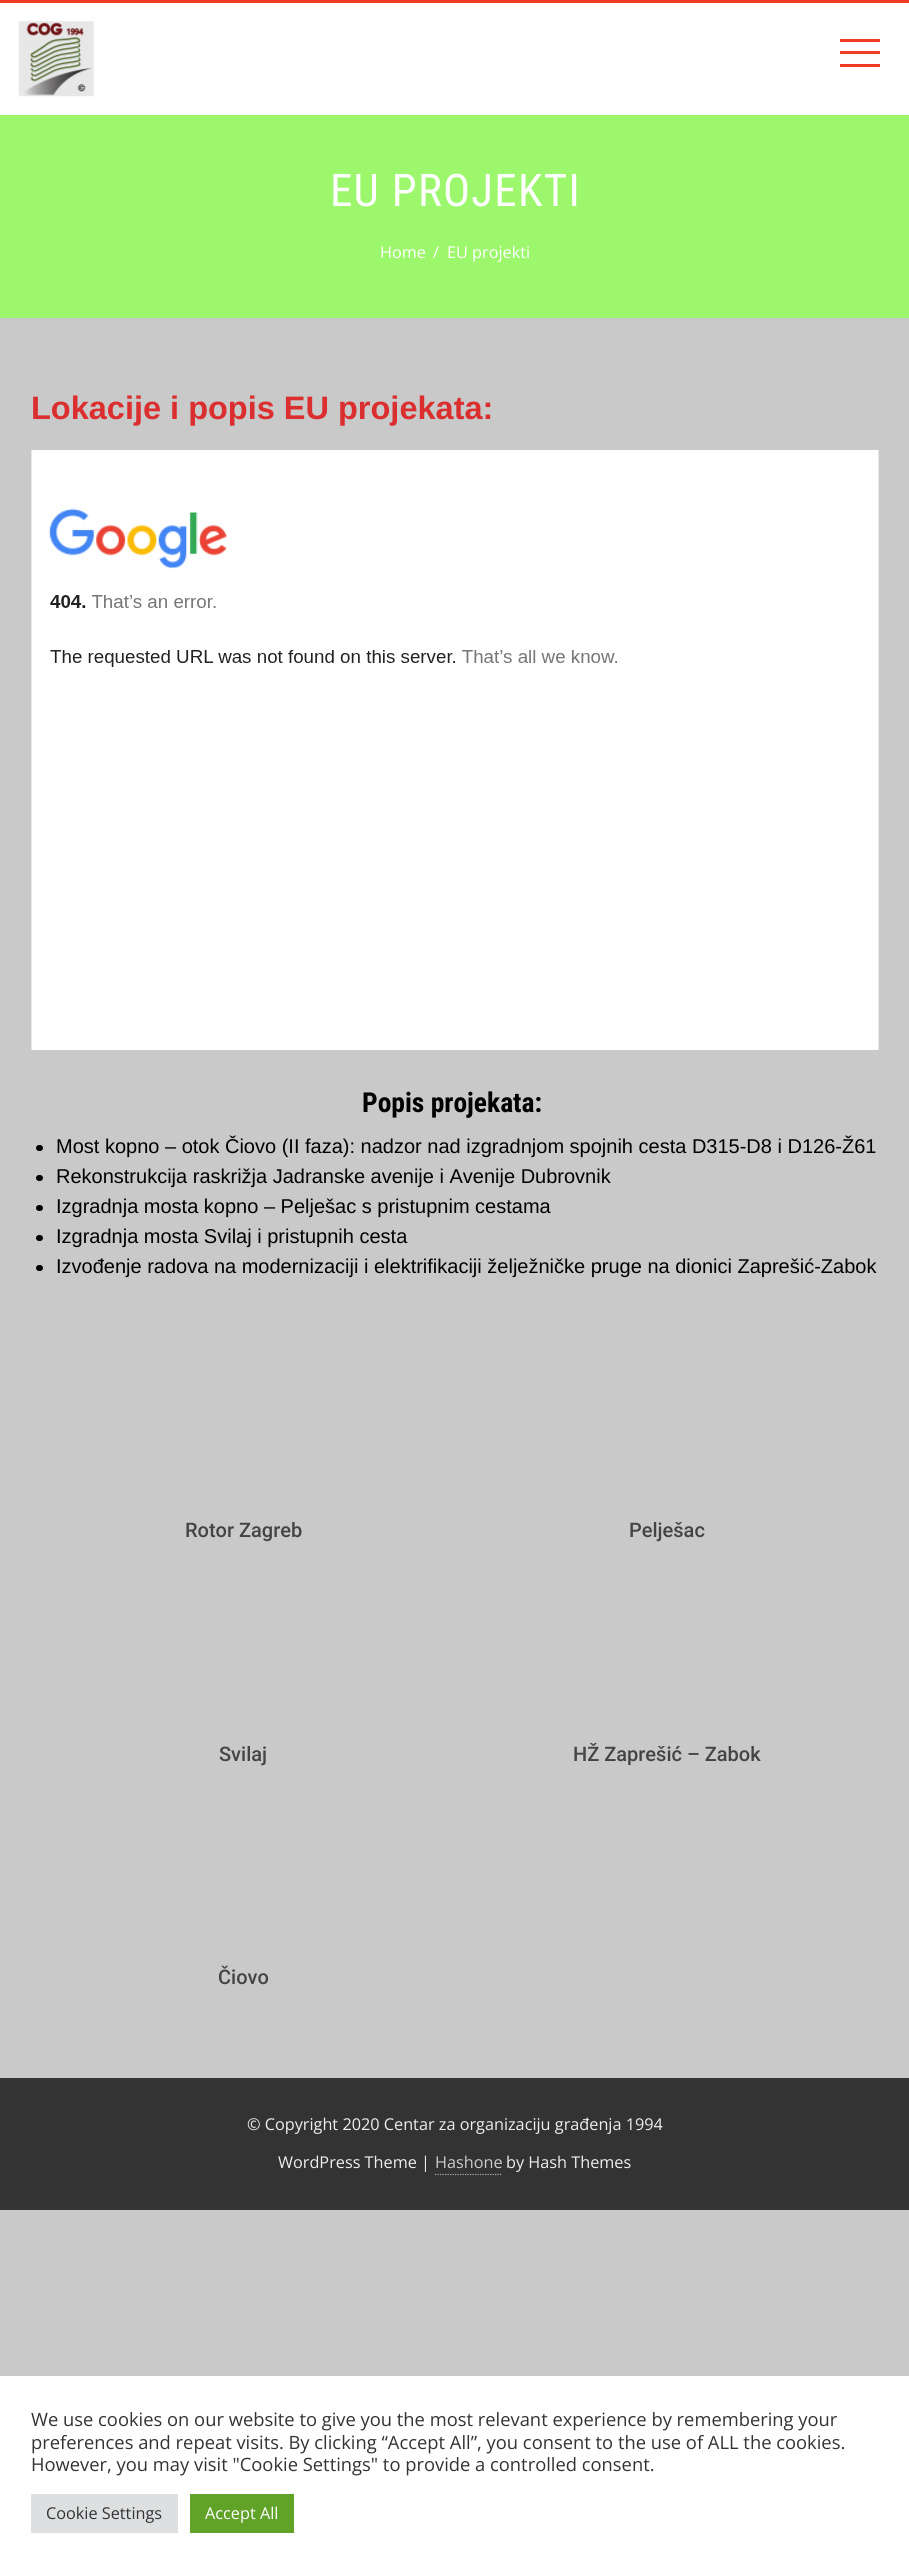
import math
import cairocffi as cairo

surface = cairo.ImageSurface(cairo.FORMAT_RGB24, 909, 2569)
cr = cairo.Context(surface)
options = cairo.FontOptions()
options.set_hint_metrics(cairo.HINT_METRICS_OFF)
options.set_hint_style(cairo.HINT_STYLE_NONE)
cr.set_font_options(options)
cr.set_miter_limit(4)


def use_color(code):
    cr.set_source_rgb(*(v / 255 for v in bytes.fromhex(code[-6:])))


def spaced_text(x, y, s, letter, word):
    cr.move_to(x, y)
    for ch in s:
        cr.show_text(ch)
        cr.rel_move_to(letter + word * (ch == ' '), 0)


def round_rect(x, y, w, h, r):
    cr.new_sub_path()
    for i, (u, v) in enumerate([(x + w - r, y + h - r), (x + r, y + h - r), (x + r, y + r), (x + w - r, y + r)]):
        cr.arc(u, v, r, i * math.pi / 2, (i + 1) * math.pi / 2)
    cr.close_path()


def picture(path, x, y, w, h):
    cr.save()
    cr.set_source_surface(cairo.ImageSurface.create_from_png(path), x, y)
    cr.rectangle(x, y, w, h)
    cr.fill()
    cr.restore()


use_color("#c9c9c9")
cr.paint()
use_color("#ffffff")
cr.rectangle(0, 3, 909, 112)
cr.fill()
use_color("#ee3b24")
cr.rectangle(0, 0, 909, 3)
cr.fill()
picture("img1.png", 18, 21, 76, 76)
cr.rectangle(840, 39, 40, 3)
cr.fill()
cr.rectangle(840, 64, 40, 3)
cr.fill()
cr.rectangle(840, 51, 40, 3)
cr.fill()
use_color("#9df76d")
cr.rectangle(0, 115, 909, 203)
cr.fill()
cr.select_font_face("Roboto Condensed")
cr.set_font_size(45)
use_color("#ffffff")
spaced_text(330, 206, "EU PROJEKTI", 1.25, 0)
cr.select_font_face("Open Sans")
cr.set_font_size(16.25)
cr.move_to(380, 258)
cr.show_text("Home")
cr.move_to(433, 258)
cr.show_text("/")
cr.move_to(447, 258)
cr.show_text("EU projekti")
cr.select_font_face("Liberation Sans", cairo.FONT_SLANT_NORMAL, cairo.FONT_WEIGHT_BOLD)
cr.set_font_size(32.5)
use_color("#db2e2e")
cr.move_to(31, 419)
cr.show_text("Lokacije i popis EU projekata:")
picture("img2.png", 31, 450, 848, 600)
cr.select_font_face("Roboto Condensed", cairo.FONT_SLANT_NORMAL, cairo.FONT_WEIGHT_BOLD)
cr.set_font_size(27.5)
use_color("#000000")
cr.move_to(362, 1112)
cr.show_text("Popis projekata:")
round_rect(36, 1145, 7, 6, 3)
cr.fill()
cr.select_font_face("Liberation Sans")
cr.set_font_size(20)
cr.move_to(56, 1153)
cr.show_text("Most kopno – otok Čiovo (II faza): nadzor nad izgradnjom spojnih cesta D315-D8 i D126-Ž61")
round_rect(36, 1175, 7, 6, 3)
cr.fill()
cr.move_to(56, 1183)
cr.show_text("Rekonstrukcija raskrižja Jadranske avenije i Avenije Dubrovnik")
round_rect(36, 1205, 7, 6, 3)
cr.fill()
cr.move_to(56, 1213)
cr.show_text("Izgradnja mosta kopno – Pelješac s pristupnim cestama")
round_rect(36, 1235, 7, 6, 3)
cr.fill()
cr.move_to(56, 1243)
cr.show_text("Izgradnja mosta Svilaj i pristupnih cesta")
round_rect(36, 1265, 7, 6, 3)
cr.fill()
cr.move_to(56, 1273)
cr.show_text("Izvođenje radova na modernizaciji i elektrifikaciji želježničke pruge na dionici Zaprešić-Zabok")
cr.select_font_face("Roboto Medium")
use_color("#444444")
cr.move_to(185, 1537)
cr.show_text("Rotor Zagreb")
cr.move_to(629, 1537)
cr.show_text("Pelješac")
cr.move_to(219, 1761)
cr.show_text("Svilaj")
cr.move_to(573, 1761)
cr.show_text("HŽ Zaprešić – Zabok")
cr.move_to(218, 1984)
cr.show_text("Čiovo")
use_color("#333333")
cr.rectangle(0, 2078, 909, 132)
cr.fill()
cr.select_font_face("Open Sans")
cr.set_font_size(16.25)
use_color("#eeeeee")
cr.move_to(247, 2130)
cr.show_text("© Copyright 2020 Centar za organizaciju građenja 1994")
cr.move_to(278, 2168)
cr.show_text("WordPress Theme |")
use_color("#cccccc")
cr.move_to(435, 2168)
cr.show_text("Hashone")
cr.new_path()
cr.move_to(435, 2174.5)
cr.line_to(502.5, 2174.5)
use_color("#aaaaaa")
cr.set_line_width(1.2)
cr.set_dash([1.25, 1.25])
cr.stroke()
use_color("#eeeeee")
cr.move_to(506, 2168)
cr.show_text("by Hash Themes")
use_color("#ffffff")
cr.rectangle(0, 2376, 909, 193)
cr.fill()
cr.set_font_size(18.35)
use_color("#333333")
cr.move_to(31, 2426)
cr.show_text("We use cookies on our website to give you the most relevant experience by remembering your")
cr.move_to(31, 2449)
cr.show_text("preferences and repeat visits. By clicking “Accept All”, you consent to the use of ALL the cookies.")
cr.move_to(31, 2471)
cr.show_text("However, you may visit \"Cookie Settings\" to provide a controlled consent.")
use_color("#dedfe0")
cr.rectangle(31, 2494, 147, 39)
cr.fill()
cr.set_font_size(16.25)
use_color("#333333")
cr.move_to(46, 2519)
cr.show_text("Cookie Settings")
use_color("#61a229")
cr.rectangle(190, 2494, 104, 39)
cr.fill()
use_color("#ffffff")
cr.move_to(205, 2519)
cr.show_text("Accept All")
surface.write_to_png("result.png")
